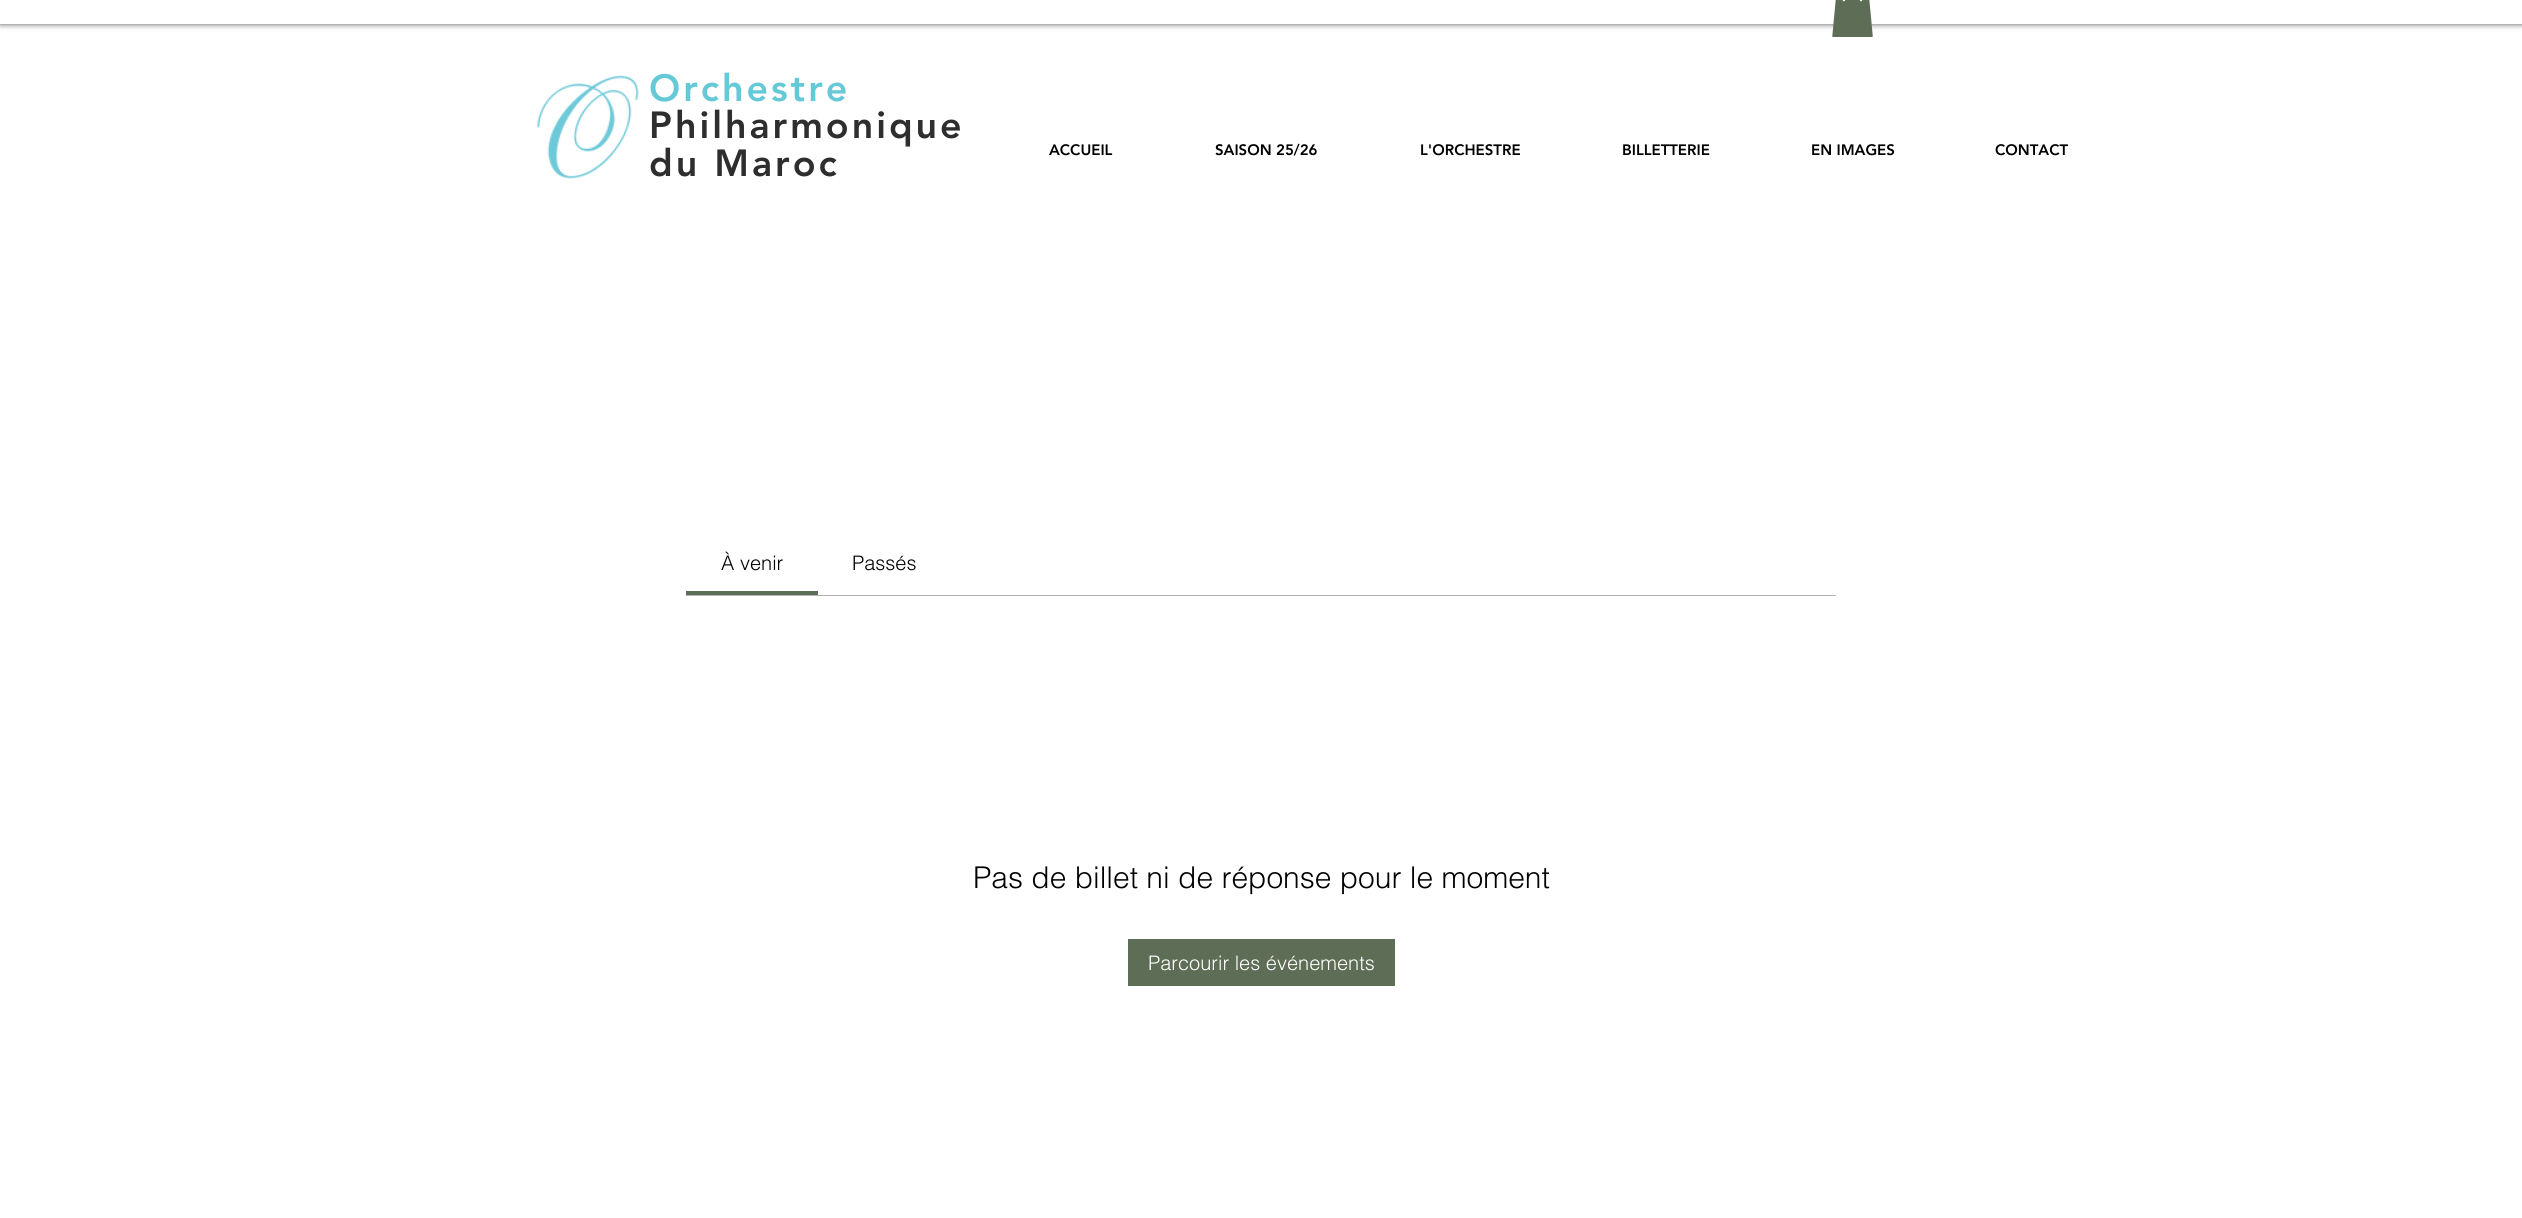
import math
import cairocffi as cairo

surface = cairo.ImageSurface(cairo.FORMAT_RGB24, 2522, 1218)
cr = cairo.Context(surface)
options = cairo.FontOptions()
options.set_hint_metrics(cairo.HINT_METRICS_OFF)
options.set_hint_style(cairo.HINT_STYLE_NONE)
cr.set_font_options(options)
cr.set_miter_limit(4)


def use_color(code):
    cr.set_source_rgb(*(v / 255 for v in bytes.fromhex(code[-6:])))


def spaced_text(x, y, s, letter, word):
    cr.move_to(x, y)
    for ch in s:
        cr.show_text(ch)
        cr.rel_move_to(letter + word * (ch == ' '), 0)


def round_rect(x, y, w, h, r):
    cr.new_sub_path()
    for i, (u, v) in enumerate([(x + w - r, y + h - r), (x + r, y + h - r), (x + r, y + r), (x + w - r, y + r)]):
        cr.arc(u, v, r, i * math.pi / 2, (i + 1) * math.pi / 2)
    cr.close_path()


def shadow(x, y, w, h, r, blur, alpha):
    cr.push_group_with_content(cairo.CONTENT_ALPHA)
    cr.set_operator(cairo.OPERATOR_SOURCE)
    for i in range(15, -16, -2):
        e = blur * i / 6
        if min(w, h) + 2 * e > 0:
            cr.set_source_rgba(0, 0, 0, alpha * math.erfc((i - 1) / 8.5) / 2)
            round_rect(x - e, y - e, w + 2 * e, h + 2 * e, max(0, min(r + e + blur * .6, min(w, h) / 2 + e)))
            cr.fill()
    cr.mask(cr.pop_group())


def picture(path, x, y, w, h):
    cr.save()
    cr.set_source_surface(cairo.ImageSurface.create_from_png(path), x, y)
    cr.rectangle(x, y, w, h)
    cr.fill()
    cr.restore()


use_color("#ffffff")
cr.paint()
use_color("#000000")
shadow(0, 0, 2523, 24, 0, 3, 0.7)
use_color("#ffffff")
cr.rectangle(0, 0, 2522, 24)
cr.fill()
picture("img1.png", 1832, 0, 41, 37)
picture("img2.png", 536, 75, 103, 104)
cr.select_font_face("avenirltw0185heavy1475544 Black")
cr.set_font_size(37.5)
use_color("#65c9d8")
spaced_text(649, 101, "Orchestre", 3, 0)
use_color("#2f2e2e")
spaced_text(649, 138, "Philharmonique", 3, 0)
spaced_text(649, 176, "du Maroc", 3, 0)
cr.set_font_size(15)
use_color("#000000")
cr.move_to(1049, 155)
cr.show_text("ACCUEIL")
cr.move_to(1215, 155)
cr.show_text("SAISON 25/26")
cr.move_to(1420, 155)
cr.show_text("L'ORCHESTRE")
cr.move_to(1622, 155)
cr.show_text("BILLETTERIE")
cr.move_to(1811, 155)
cr.show_text("EN IMAGES")
cr.move_to(1995, 155)
cr.show_text("CONTACT")
use_color("#5e6d55")
cr.rectangle(686, 591, 132, 4)
cr.fill()
cr.select_font_face("helvetica Light")
cr.set_font_size(20)
use_color("#000000")
cr.move_to(721, 570)
cr.show_text("À venir")
cr.move_to(852, 570)
cr.show_text("Passés")
use_color("#b3b3b3")
cr.rectangle(686, 595, 1150, 1)
cr.fill()
cr.set_font_size(30)
use_color("#000000")
cr.move_to(973, 888)
cr.show_text("Pas de billet ni de réponse pour le moment")
use_color("#5e6d55")
cr.rectangle(1128, 939, 267, 47)
cr.fill()
cr.set_font_size(20)
use_color("#ffffff")
cr.move_to(1148, 970)
cr.show_text("Parcourir les événements")
surface.write_to_png("result.png")
